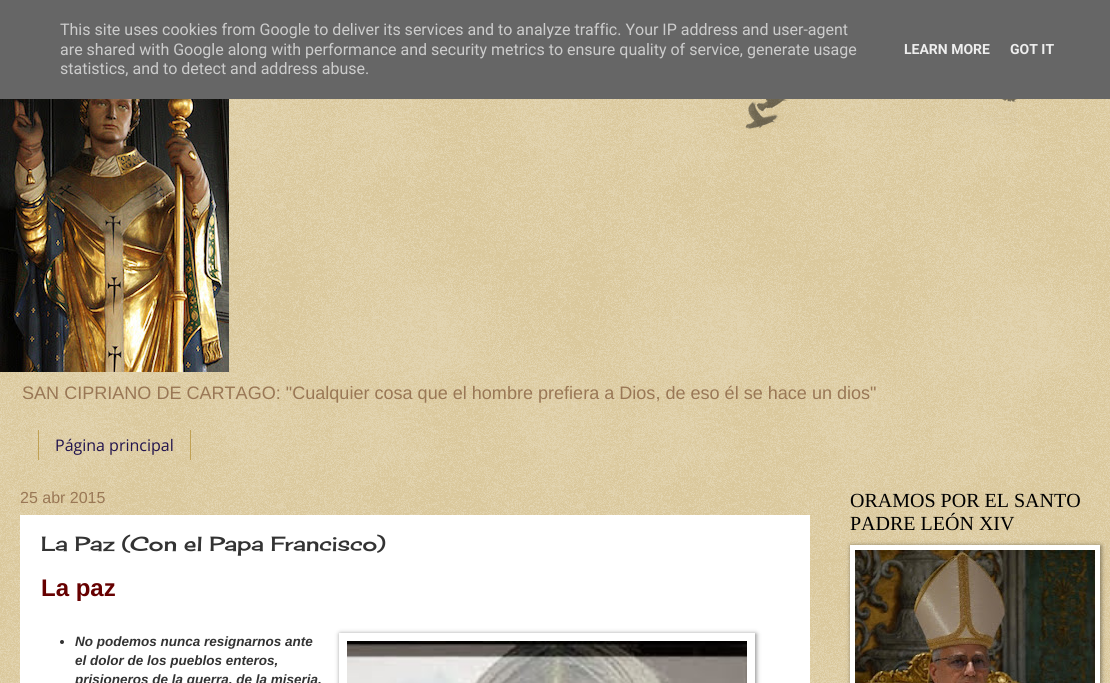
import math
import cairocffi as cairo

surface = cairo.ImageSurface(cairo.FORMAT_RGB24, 1110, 683)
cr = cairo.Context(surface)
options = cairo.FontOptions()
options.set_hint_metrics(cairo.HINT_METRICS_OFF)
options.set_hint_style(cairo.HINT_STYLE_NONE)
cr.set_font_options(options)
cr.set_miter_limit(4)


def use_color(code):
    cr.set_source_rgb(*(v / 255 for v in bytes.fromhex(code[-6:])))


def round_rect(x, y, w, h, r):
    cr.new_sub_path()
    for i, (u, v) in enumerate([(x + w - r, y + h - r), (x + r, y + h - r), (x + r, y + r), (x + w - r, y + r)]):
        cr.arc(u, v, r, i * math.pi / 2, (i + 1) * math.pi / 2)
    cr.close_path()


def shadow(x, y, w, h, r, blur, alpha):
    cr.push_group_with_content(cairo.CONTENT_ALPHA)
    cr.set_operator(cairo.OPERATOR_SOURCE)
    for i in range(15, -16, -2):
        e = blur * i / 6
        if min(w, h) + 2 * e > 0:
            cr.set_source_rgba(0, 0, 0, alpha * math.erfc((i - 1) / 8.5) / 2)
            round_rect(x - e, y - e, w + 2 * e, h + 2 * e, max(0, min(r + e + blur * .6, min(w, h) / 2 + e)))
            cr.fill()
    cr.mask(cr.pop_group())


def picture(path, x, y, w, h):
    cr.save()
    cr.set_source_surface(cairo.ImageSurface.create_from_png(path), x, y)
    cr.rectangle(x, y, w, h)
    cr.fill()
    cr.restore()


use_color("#c0a154")
cr.paint()
picture("img1.png", 0, 99, 1110, 584)
use_color("#666666")
cr.rectangle(0, 0, 1110, 99)
cr.fill()
cr.select_font_face("Roboto")
cr.set_font_size(16)
use_color("#cccccc")
cr.move_to(60, 35)
cr.show_text("This site uses cookies from Google to deliver its services and to analyze traffic. Your IP address and user-agent")
cr.move_to(60, 55)
cr.show_text("are shared with Google along with performance and security metrics to ensure quality of service, generate usage")
cr.move_to(60, 74)
cr.show_text("statistics, and to detect and address abuse.")
cr.select_font_face("Roboto", cairo.FONT_SLANT_NORMAL, cairo.FONT_WEIGHT_BOLD)
cr.set_font_size(14)
use_color("#eeeeee")
cr.move_to(904, 54)
cr.show_text("LEARN MORE")
cr.move_to(1010, 54)
cr.show_text("GOT IT")
picture("img2.png", 745, 99, 272, 30)
picture("img3.png", 0, 99, 229, 273)
cr.select_font_face("Liberation Sans")
cr.set_font_size(18.05)
use_color("#997755")
cr.move_to(22, 399)
cr.show_text("SAN CIPRIANO DE CARTAGO: \"Cualquier cosa que el hombre prefiera a Dios, de eso él se hace un dios\"")
use_color("#c0a154")
cr.rectangle(190, 430, 1, 30)
cr.fill()
cr.rectangle(38, 430, 1, 30)
cr.fill()
cr.select_font_face("Open Sans")
cr.set_font_size(16)
use_color("#20124d")
cr.move_to(55, 451)
cr.show_text("Página principal")
cr.select_font_face("Liberation Sans")
use_color("#997755")
cr.move_to(20, 503)
cr.show_text("25 abr 2015")
use_color("#ffffff")
cr.rectangle(20, 515, 790, 168)
cr.fill()
cr.select_font_face("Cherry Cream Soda")
cr.set_font_size(20)
use_color("#333333")
cr.move_to(41, 551)
cr.show_text("La Paz (Con el Papa Francisco)")
cr.select_font_face("Liberation Sans", cairo.FONT_SLANT_NORMAL, cairo.FONT_WEIGHT_BOLD)
cr.set_font_size(24)
use_color("#660000")
cr.move_to(41, 596)
cr.show_text("La paz")
use_color("#333333")
cr.new_path()
cr.arc(62, 642, 2, 0, 2 * math.pi)
cr.fill()
cr.select_font_face("Liberation Sans", cairo.FONT_SLANT_ITALIC, cairo.FONT_WEIGHT_BOLD)
cr.set_font_size(13.5)
cr.move_to(75, 646)
cr.show_text("No podemos nunca resignarnos ante")
cr.move_to(75, 665)
cr.show_text("el dolor de los pueblos enteros,")
cr.move_to(75, 684)
cr.show_text("prisioneros de la guerra, de la miseria,")
cr.save()
cr.set_fill_rule(cairo.FILL_RULE_EVEN_ODD)
cr.new_path()
cr.move_to(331, 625)
cr.line_to(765, 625)
cr.line_to(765, 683)
cr.line_to(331, 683)
cr.close_path()
cr.move_to(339, 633)
cr.line_to(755, 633)
cr.line_to(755, 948)
cr.line_to(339, 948)
cr.close_path()
cr.clip()
use_color("#000000")
shadow(340, 634, 416, 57, 0, 2.5, 0.5)
cr.restore()
picture("img4.png", 347, 641, 400, 42)
cr.select_font_face("Liberation Serif")
cr.set_font_size(20)
use_color("#000000")
cr.move_to(850, 507)
cr.show_text("ORAMOS POR EL SANTO")
cr.move_to(850, 530)
cr.show_text("PADRE LEÓN XIV")
use_color("#000000")
shadow(851, 546, 250, 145, 0, 2.5, 0.5)
use_color("#ffffff")
cr.rectangle(850, 545, 250, 138)
cr.fill()
picture("img5.png", 855, 550, 240, 133)
surface.write_to_png("result.png")
